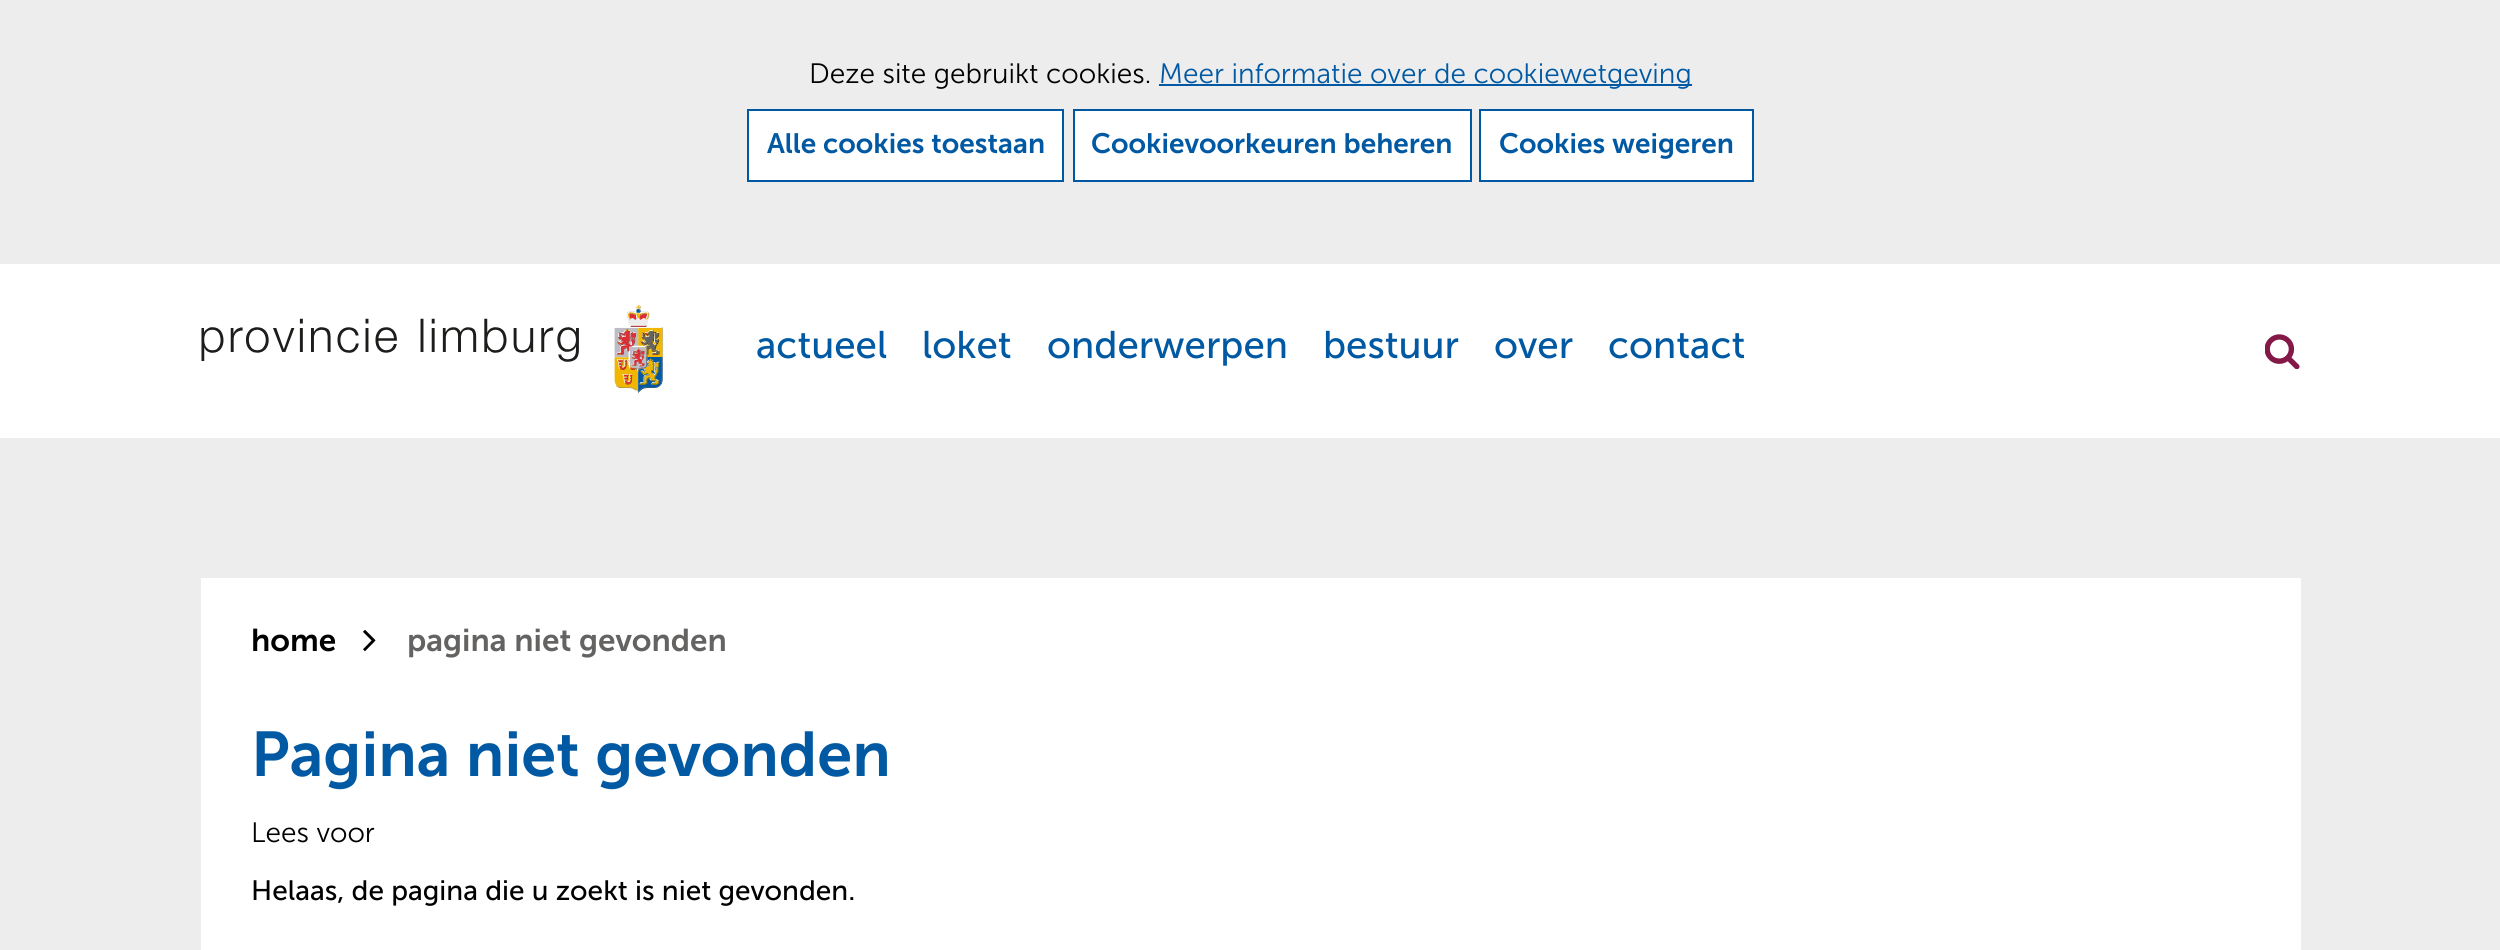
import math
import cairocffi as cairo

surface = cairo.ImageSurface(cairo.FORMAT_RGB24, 2500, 950)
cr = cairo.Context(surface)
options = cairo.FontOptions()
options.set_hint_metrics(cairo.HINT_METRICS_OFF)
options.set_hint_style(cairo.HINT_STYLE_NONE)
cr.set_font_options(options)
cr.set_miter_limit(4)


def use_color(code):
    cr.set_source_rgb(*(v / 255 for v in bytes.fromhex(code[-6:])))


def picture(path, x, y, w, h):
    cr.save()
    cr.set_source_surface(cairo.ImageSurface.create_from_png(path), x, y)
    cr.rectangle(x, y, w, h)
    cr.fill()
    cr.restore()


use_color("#ededee")
cr.paint()
cr.select_font_face("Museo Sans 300 Light")
cr.set_font_size(28)
use_color("#000000")
cr.move_to(809, 83)
cr.show_text("Deze site gebruikt cookies.")
use_color("#0059a2")
cr.rectangle(1159, 84, 533, 2)
cr.fill()
cr.move_to(1159, 83)
cr.show_text("Meer informatie over de cookiewetgeving")
use_color("#ffffff")
cr.rectangle(748, 110, 315, 71)
cr.fill_preserve()
use_color("#0058a2")
cr.stroke()
cr.select_font_face("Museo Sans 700 SemiBold")
use_color("#0059a2")
cr.move_to(767, 153)
cr.show_text("Alle cookies toestaan")
use_color("#ffffff")
cr.rectangle(1074, 110, 397, 71)
cr.fill_preserve()
use_color("#0058a2")
cr.stroke()
use_color("#0059a2")
cr.move_to(1091, 153)
cr.show_text("Cookievoorkeuren beheren")
use_color("#ffffff")
cr.rectangle(1480, 110, 273, 71)
cr.fill_preserve()
use_color("#0058a2")
cr.stroke()
use_color("#0059a2")
cr.move_to(1499, 153)
cr.show_text("Cookies weigeren")
use_color("#ffffff")
cr.rectangle(0, 264, 2500, 174)
cr.fill()
picture("img1.png", 201, 305, 462, 89)
cr.select_font_face("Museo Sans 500")
cr.set_font_size(38.5)
use_color("#0059a2")
cr.move_to(756, 358)
cr.show_text("actueel")
cr.move_to(922, 358)
cr.show_text("loket")
cr.move_to(1047, 358)
cr.show_text("onderwerpen")
cr.move_to(1323, 358)
cr.show_text("bestuur")
cr.move_to(1494, 358)
cr.show_text("over")
cr.move_to(1608, 358)
cr.show_text("contact")
picture("img2.png", 2265, 334, 35, 35)
use_color("#ffffff")
cr.rectangle(201, 578, 2100, 372)
cr.fill()
cr.select_font_face("Museo Sans 700 SemiBold")
cr.set_font_size(31.5)
use_color("#000000")
cr.move_to(251, 651)
cr.show_text("home")
picture("img3.png", 363, 630, 13, 21)
use_color("#646362")
cr.move_to(407, 651)
cr.show_text("pagina niet gevonden")
cr.set_font_size(63)
use_color("#0059a2")
cr.move_to(251, 776)
cr.show_text("Pagina niet gevonden")
cr.select_font_face("Museo Sans 300 Light")
cr.set_font_size(28)
use_color("#000000")
cr.move_to(251, 842)
cr.show_text("Lees voor")
cr.select_font_face("Museo Sans 500")
cr.move_to(251, 900)
cr.show_text("Helaas, de pagina die u zoekt is niet gevonden.")
surface.write_to_png("result.png")
